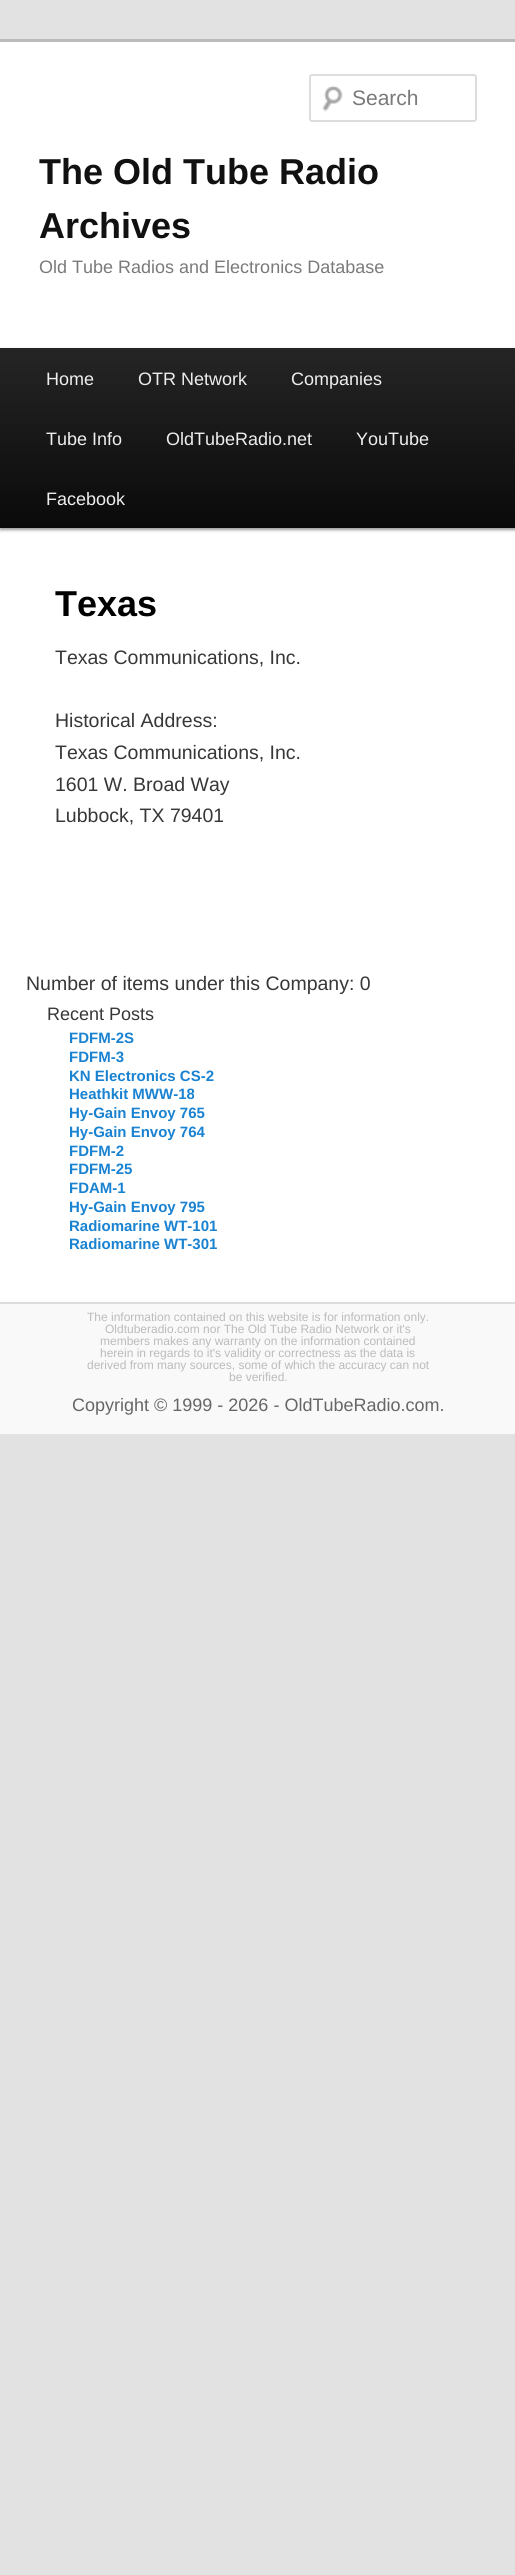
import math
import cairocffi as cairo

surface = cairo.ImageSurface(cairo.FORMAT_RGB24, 515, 2575)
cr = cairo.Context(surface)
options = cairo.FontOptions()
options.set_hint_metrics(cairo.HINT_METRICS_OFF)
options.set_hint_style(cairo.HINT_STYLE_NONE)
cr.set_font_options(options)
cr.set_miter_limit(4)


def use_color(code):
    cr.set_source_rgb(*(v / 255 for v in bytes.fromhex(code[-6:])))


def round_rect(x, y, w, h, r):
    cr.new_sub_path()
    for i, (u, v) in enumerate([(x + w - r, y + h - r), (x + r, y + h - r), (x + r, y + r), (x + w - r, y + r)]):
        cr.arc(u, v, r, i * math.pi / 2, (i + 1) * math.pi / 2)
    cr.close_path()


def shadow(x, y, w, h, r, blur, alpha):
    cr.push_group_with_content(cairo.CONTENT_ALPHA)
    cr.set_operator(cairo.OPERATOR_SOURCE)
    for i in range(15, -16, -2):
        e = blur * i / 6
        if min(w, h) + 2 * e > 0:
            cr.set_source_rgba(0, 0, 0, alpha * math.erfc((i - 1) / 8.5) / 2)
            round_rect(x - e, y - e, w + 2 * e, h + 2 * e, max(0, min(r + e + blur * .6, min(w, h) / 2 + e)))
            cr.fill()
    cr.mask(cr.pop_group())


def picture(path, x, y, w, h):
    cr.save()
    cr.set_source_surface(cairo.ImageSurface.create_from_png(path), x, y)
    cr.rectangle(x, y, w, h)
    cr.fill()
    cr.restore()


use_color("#e2e2e2")
cr.paint()
use_color("#ffffff")
cr.rectangle(0, 42, 515, 1260)
cr.fill()
use_color("#bbbbbb")
cr.rectangle(0, 39, 515, 3)
cr.fill()
picture("img1.png", 322, 85, 21, 27)
round_rect(310, 75, 166, 46, 2)
use_color("#dddddd")
cr.stroke()
cr.select_font_face("Liberation Sans")
cr.set_font_size(21)
use_color("#7a7a7a")
cr.move_to(352, 105)
cr.show_text("Search")
cr.select_font_face("Liberation Sans", cairo.FONT_SLANT_NORMAL, cairo.FONT_WEIGHT_BOLD)
cr.set_font_size(36)
use_color("#111111")
cr.move_to(39, 184)
cr.show_text("The Old Tube Radio")
cr.move_to(39, 238)
cr.show_text("Archives")
cr.select_font_face("Liberation Sans")
cr.set_font_size(18)
use_color("#7a7a7a")
cr.move_to(39, 273)
cr.show_text("Old Tube Radios and Electronics Database")
use_color("#000000")
shadow(0, 350, 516, 180, 0, 1.5, 0.4)
gradient = cairo.LinearGradient(258, 348, 258, 528)
gradient.add_color_stop_rgba(0, 0.145, 0.145, 0.145, 1)
gradient.add_color_stop_rgba(1, 0.039, 0.039, 0.039, 1)
cr.set_source(gradient)
cr.rectangle(0, 348, 515, 180)
cr.fill()
use_color("#eeeeee")
cr.move_to(46, 385)
cr.show_text("Home")
cr.move_to(138, 385)
cr.show_text("OTR Network")
cr.move_to(291, 385)
cr.show_text("Companies")
cr.move_to(46, 445)
cr.show_text("Tube Info")
cr.move_to(166, 445)
cr.show_text("OldTubeRadio.net")
cr.move_to(356, 445)
cr.show_text("YouTube")
cr.move_to(46, 505)
cr.show_text("Facebook")
cr.select_font_face("Liberation Sans", cairo.FONT_SLANT_NORMAL, cairo.FONT_WEIGHT_BOLD)
cr.set_font_size(36)
use_color("#000000")
cr.move_to(55, 616)
cr.show_text("Texas")
cr.select_font_face("Liberation Sans")
cr.set_font_size(19.5)
use_color("#373737")
cr.move_to(55, 664)
cr.show_text("Texas Communications, Inc.")
cr.move_to(55, 727)
cr.show_text("Historical Address:")
cr.move_to(55, 759)
cr.show_text("Texas Communications, Inc.")
cr.move_to(55, 791)
cr.show_text("1601 W. Broad Way")
cr.move_to(55, 822)
cr.show_text("Lubbock, TX 79401")
cr.move_to(26, 990)
cr.show_text("Number of items under this Company: 0")
cr.set_font_size(18)
cr.move_to(47, 1020)
cr.show_text("Recent Posts")
cr.select_font_face("Liberation Sans", cairo.FONT_SLANT_NORMAL, cairo.FONT_WEIGHT_BOLD)
cr.set_font_size(15)
use_color("#1982d1")
cr.move_to(69, 1043)
cr.show_text("FDFM-2S")
cr.move_to(69, 1062)
cr.show_text("FDFM-3")
cr.move_to(69, 1081)
cr.show_text("KN Electronics CS-2")
cr.move_to(69, 1099)
cr.show_text("Heathkit MWW-18")
cr.move_to(69, 1118)
cr.show_text("Hy-Gain Envoy 765")
cr.move_to(69, 1137)
cr.show_text("Hy-Gain Envoy 764")
cr.move_to(69, 1156)
cr.show_text("FDFM-2")
cr.move_to(69, 1174)
cr.show_text("FDFM-25")
cr.move_to(69, 1193)
cr.show_text("FDAM-1")
cr.move_to(69, 1212)
cr.show_text("Hy-Gain Envoy 795")
cr.move_to(69, 1231)
cr.show_text("Radiomarine WT-101")
cr.move_to(69, 1249)
cr.show_text("Radiomarine WT-301")
use_color("#f9f9f9")
cr.rectangle(0, 1304, 515, 130)
cr.fill()
use_color("#dddddd")
cr.rectangle(0, 1302, 515, 2)
cr.fill()
cr.select_font_face("Liberation Sans")
cr.set_font_size(12)
use_color("#bbbbbb")
cr.move_to(87, 1321)
cr.show_text("The information contained on this website is for information only.")
cr.move_to(105, 1333)
cr.show_text("Oldtuberadio.com nor The Old Tube Radio Network or it's")
cr.move_to(100, 1345)
cr.show_text("members makes any warranty on the information contained")
cr.move_to(100, 1357)
cr.show_text("herein in regards to it's validity or correctness as the data is")
cr.move_to(87, 1369)
cr.show_text("derived from many sources, some of which the accuracy can not")
cr.move_to(229, 1381)
cr.show_text("be verified.")
cr.set_font_size(18)
use_color("#666666")
cr.move_to(72, 1411)
cr.show_text("Copyright © 1999 - 2026 - OldTubeRadio.com.")
surface.write_to_png("result.png")
